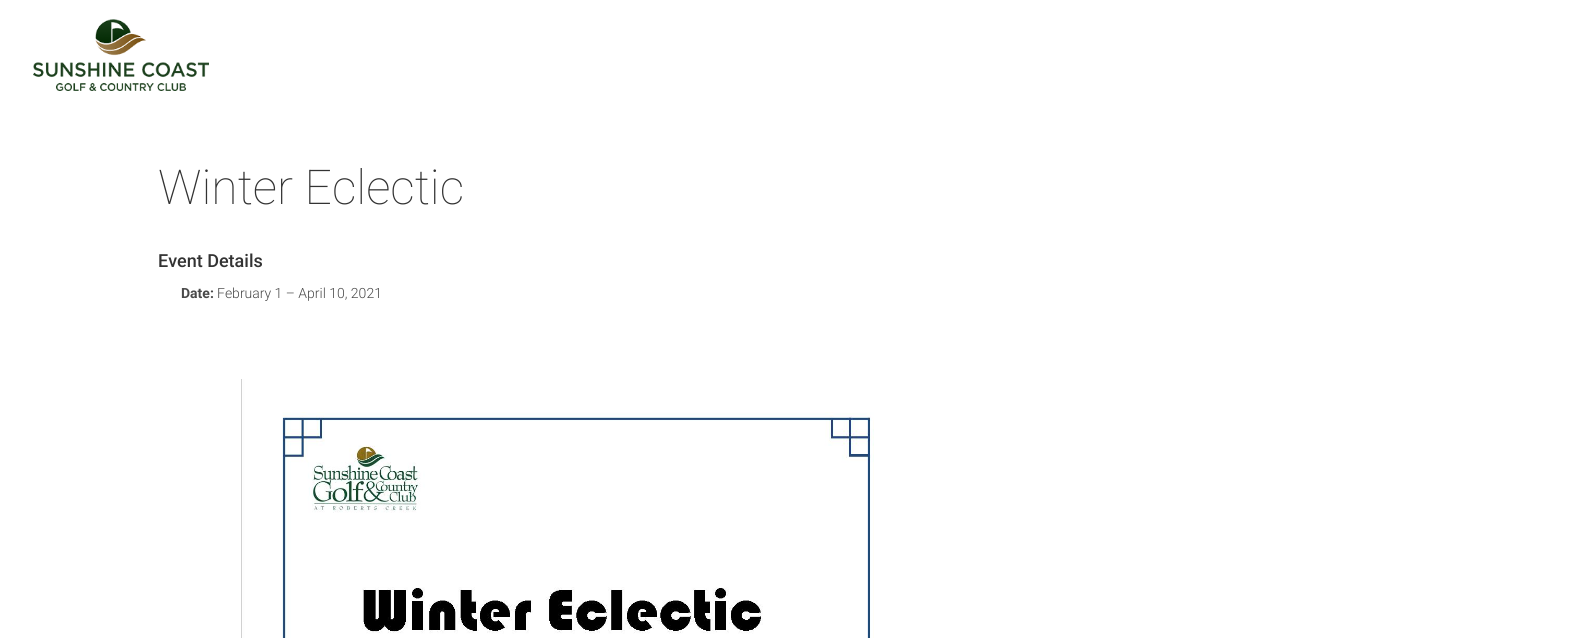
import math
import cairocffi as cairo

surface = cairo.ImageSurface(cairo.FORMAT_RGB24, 1577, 638)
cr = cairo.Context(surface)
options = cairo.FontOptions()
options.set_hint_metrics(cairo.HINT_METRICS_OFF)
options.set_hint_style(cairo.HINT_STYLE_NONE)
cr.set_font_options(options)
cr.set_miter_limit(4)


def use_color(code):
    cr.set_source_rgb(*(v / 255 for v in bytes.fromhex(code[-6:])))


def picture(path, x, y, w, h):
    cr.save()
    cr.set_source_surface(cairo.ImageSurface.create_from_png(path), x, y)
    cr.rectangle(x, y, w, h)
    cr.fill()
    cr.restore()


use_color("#ffffff")
cr.paint()
picture("img1.png", 33, 19, 176, 72)
cr.select_font_face("Roboto Thin")
cr.set_font_size(48)
use_color("#333333")
cr.move_to(158, 204)
cr.show_text("Winter Eclectic")
cr.select_font_face("Roboto Medium")
cr.set_font_size(18)
cr.move_to(158, 267)
cr.show_text("Event Details")
cr.select_font_face("Roboto", cairo.FONT_SLANT_NORMAL, cairo.FONT_WEIGHT_BOLD)
cr.set_font_size(14)
use_color("#4a4a4a")
cr.move_to(181, 298)
cr.show_text("Date:")
cr.select_font_face("Roboto Light")
cr.move_to(217, 298)
cr.show_text("February 1 – April 10, 2021")
picture("img2.png", 241, 379, 633, 259)
surface.write_to_png("result.png")
